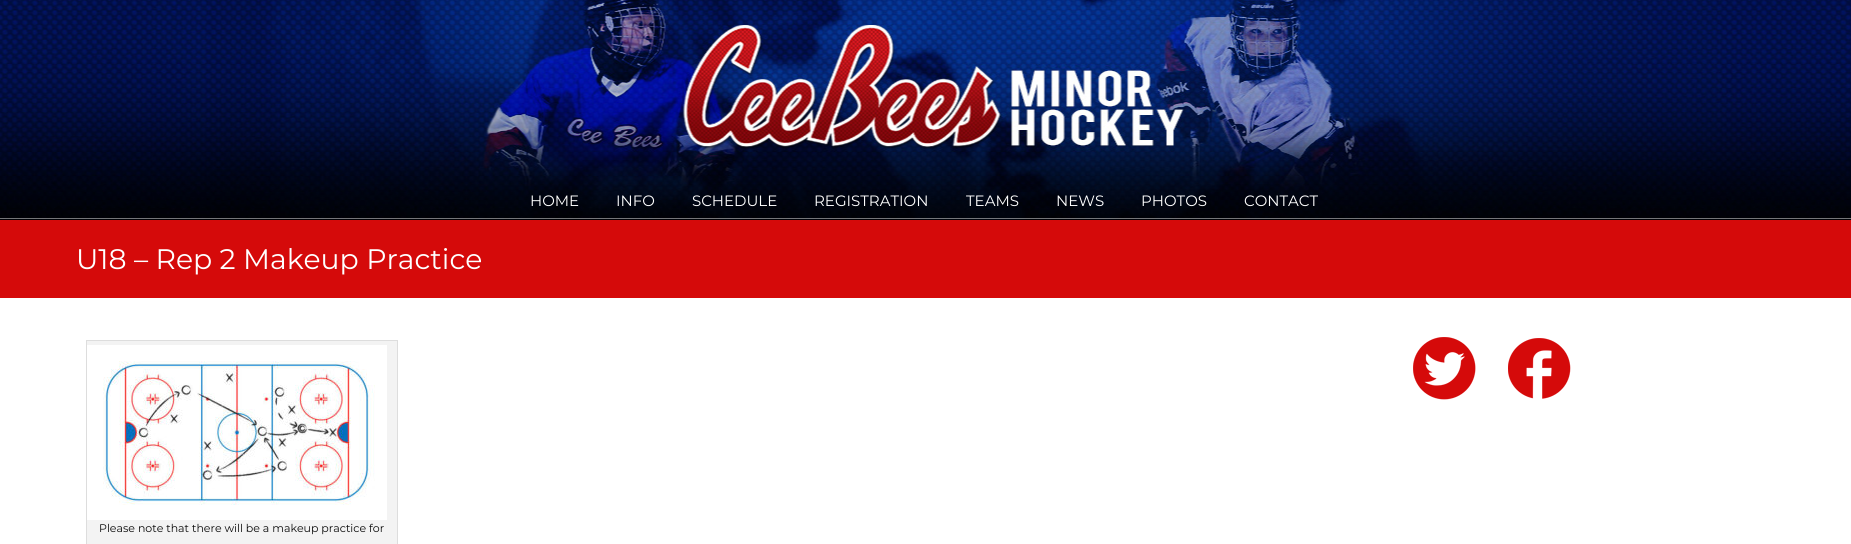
import math
import cairocffi as cairo

surface = cairo.ImageSurface(cairo.FORMAT_RGB24, 1851, 544)
cr = cairo.Context(surface)
options = cairo.FontOptions()
options.set_hint_metrics(cairo.HINT_METRICS_OFF)
options.set_hint_style(cairo.HINT_STYLE_NONE)
cr.set_font_options(options)
cr.set_miter_limit(4)


def use_color(code):
    cr.set_source_rgb(*(v / 255 for v in bytes.fromhex(code[-6:])))


def picture(path, x, y, w, h):
    cr.save()
    cr.set_source_surface(cairo.ImageSurface.create_from_png(path), x, y)
    cr.rectangle(x, y, w, h)
    cr.fill()
    cr.restore()


use_color("#ffffff")
cr.paint()
picture("img1.png", 0, 0, 1851, 220)
cr.set_source_rgba(0.992, 0.992, 0.992, 0.46)
cr.rectangle(0, 218, 1851, 1)
cr.fill()
cr.select_font_face("Montserrat Thin")
cr.set_font_size(15)
use_color("#ffffff")
cr.move_to(530, 206)
cr.show_text("HOME")
cr.move_to(616, 206)
cr.show_text("INFO")
cr.move_to(692, 206)
cr.show_text("SCHEDULE")
cr.move_to(814, 206)
cr.show_text("REGISTRATION")
cr.move_to(966, 206)
cr.show_text("TEAMS")
cr.move_to(1056, 206)
cr.show_text("NEWS")
cr.move_to(1141, 206)
cr.show_text("PHOTOS")
cr.move_to(1244, 206)
cr.show_text("CONTACT")
use_color("#d50a0a")
cr.rectangle(0, 220, 1851, 78)
cr.fill()
cr.set_font_size(28.25)
use_color("#ffffff")
cr.move_to(76, 269)
cr.show_text("U18 – Rep 2 Makeup Practice")
picture("img2.png", 1413, 337, 63, 63)
picture("img3.png", 1508, 338, 63, 61)
use_color("#f3f3f3")
cr.rectangle(86.5, 340.5, 311, 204)
cr.fill_preserve()
use_color("#dddddd")
cr.set_line_width(1)
cr.stroke()
picture("img4.png", 87, 345, 300, 175)
cr.set_font_size(11)
use_color("#0a0a0a")
cr.move_to(99, 532)
cr.show_text("Please note that there will be a makeup practice for")
surface.write_to_png("result.png")
